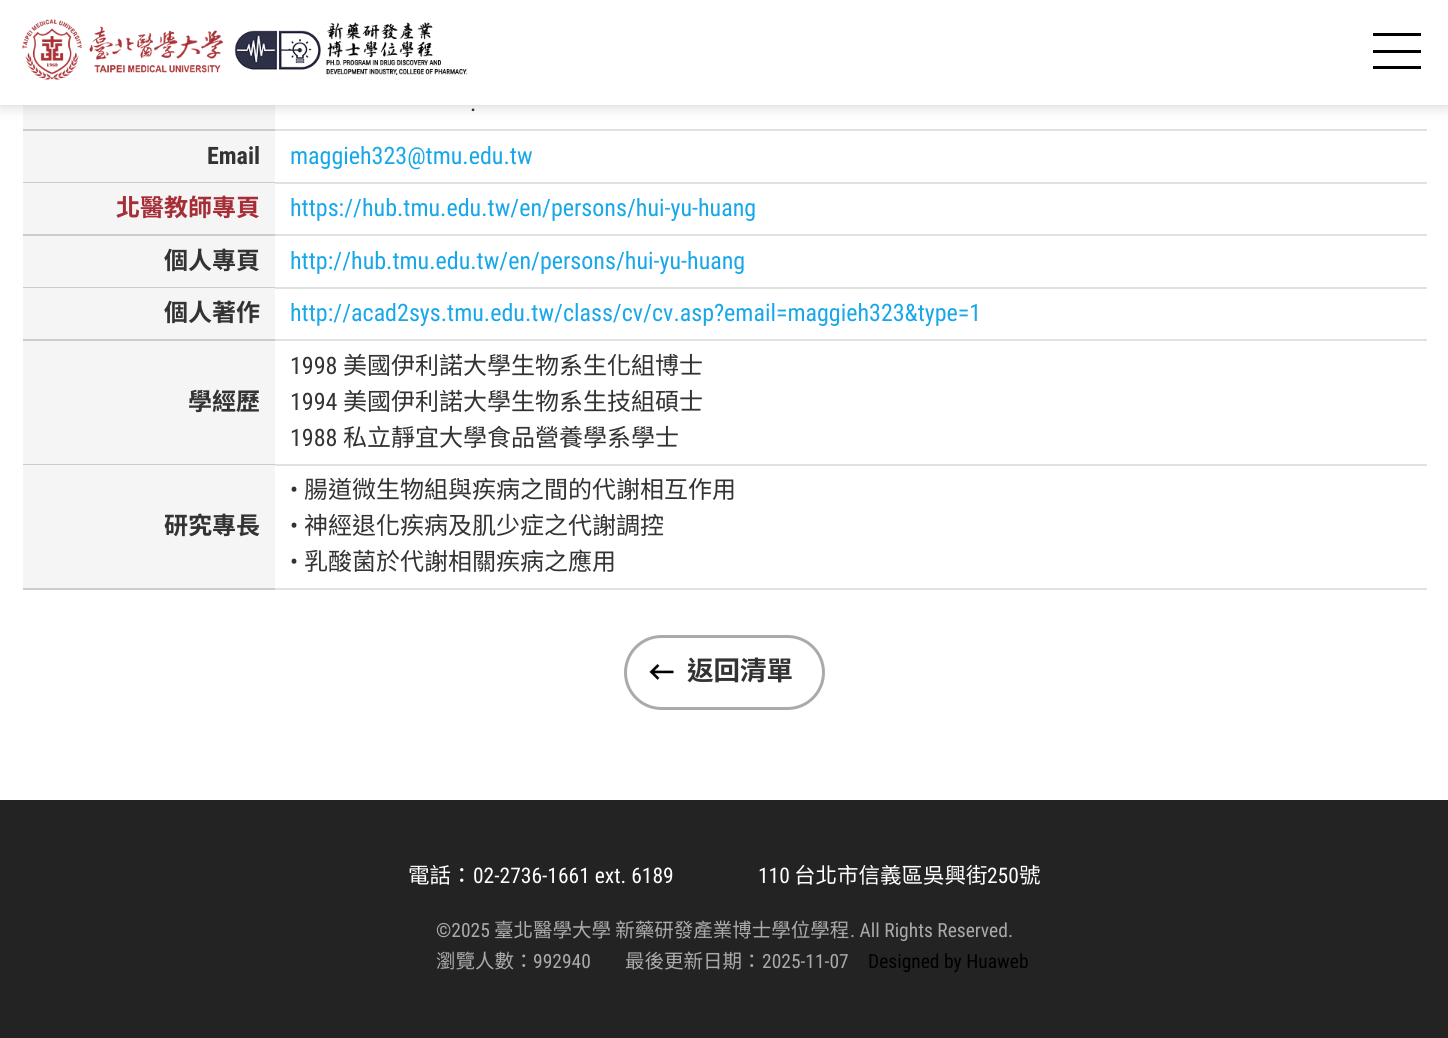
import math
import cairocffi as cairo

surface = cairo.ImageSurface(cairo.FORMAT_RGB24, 1448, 1038)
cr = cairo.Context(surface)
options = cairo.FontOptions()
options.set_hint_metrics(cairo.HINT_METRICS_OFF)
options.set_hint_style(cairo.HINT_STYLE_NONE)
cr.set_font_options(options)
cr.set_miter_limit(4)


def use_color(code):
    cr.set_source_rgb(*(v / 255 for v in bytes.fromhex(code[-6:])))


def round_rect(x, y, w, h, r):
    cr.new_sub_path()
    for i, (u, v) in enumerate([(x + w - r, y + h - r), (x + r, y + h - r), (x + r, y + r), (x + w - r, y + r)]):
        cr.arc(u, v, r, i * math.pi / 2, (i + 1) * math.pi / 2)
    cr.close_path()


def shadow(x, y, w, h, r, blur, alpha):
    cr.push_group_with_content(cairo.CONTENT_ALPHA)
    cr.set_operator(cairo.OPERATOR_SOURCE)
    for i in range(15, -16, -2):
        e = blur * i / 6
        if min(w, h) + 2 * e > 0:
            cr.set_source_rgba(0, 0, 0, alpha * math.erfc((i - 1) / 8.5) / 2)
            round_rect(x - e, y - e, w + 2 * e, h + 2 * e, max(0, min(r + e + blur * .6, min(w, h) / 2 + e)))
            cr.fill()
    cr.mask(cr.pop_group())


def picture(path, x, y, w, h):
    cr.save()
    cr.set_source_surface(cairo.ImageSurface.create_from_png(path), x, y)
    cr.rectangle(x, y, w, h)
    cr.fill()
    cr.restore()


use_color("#232323")
cr.paint()
use_color("#ffffff")
cr.rectangle(0, 105, 1448, 695)
cr.fill()
use_color("#f5f5f5")
cr.rectangle(23, 105, 252, 24)
cr.fill()
use_color("#000000")
shadow(0, 0, 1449, 105, 0, 7.5, 0.2)
use_color("#ffffff")
cr.rectangle(0, 0, 1448, 105)
cr.fill()
picture("img1.png", 22, 19, 201, 61)
picture("img2.png", 234, 22, 234, 53)
use_color("#000000")
cr.rectangle(1373, 33, 48, 3)
cr.fill()
cr.rectangle(1373, 50, 48, 3)
cr.fill()
cr.rectangle(1373, 66, 48, 3)
cr.fill()
use_color("#cccccc")
cr.rectangle(23, 129, 252, 2)
cr.fill()
use_color("#e1e1e1")
cr.rectangle(275, 129, 1152, 2)
cr.fill()
cr.select_font_face("Roboto Condensed")
cr.set_font_size(24)
use_color("#333333")
cr.move_to(470, 111)
cr.show_text(".")
use_color("#f5f5f5")
cr.rectangle(23, 131, 252, 51)
cr.fill()
use_color("#cccccc")
cr.rectangle(23, 182, 252, 1)
cr.fill()
cr.select_font_face("Roboto Condensed", cairo.FONT_SLANT_NORMAL, cairo.FONT_WEIGHT_BOLD)
use_color("#333333")
cr.move_to(207, 164)
cr.show_text("Email")
use_color("#e1e1e1")
cr.rectangle(275, 182, 1152, 2)
cr.fill()
cr.select_font_face("Roboto Condensed")
use_color("#18a7e8")
cr.move_to(290, 164)
cr.show_text("maggieh323@tmu.edu.tw")
use_color("#f5f5f5")
cr.rectangle(23, 183, 252, 51)
cr.fill()
use_color("#cccccc")
cr.rectangle(23, 234, 252, 2)
cr.fill()
cr.select_font_face("Noto Sans TC", cairo.FONT_SLANT_NORMAL, cairo.FONT_WEIGHT_BOLD)
use_color("#a62e37")
cr.move_to(116, 216)
cr.show_text("北醫教師專頁")
use_color("#e1e1e1")
cr.rectangle(275, 234, 1152, 2)
cr.fill()
cr.select_font_face("Roboto Condensed")
use_color("#18a7e8")
cr.move_to(290, 216)
cr.show_text("https://hub.tmu.edu.tw/en/persons/hui-yu-huang")
use_color("#f5f5f5")
cr.rectangle(23, 236, 252, 51)
cr.fill()
use_color("#cccccc")
cr.rectangle(23, 287, 252, 1)
cr.fill()
cr.select_font_face("Noto Sans TC", cairo.FONT_SLANT_NORMAL, cairo.FONT_WEIGHT_BOLD)
use_color("#333333")
cr.move_to(164, 269)
cr.show_text("個人專頁")
use_color("#e1e1e1")
cr.rectangle(275, 287, 1152, 2)
cr.fill()
cr.select_font_face("Roboto Condensed")
use_color("#18a7e8")
cr.move_to(290, 269)
cr.show_text("http://hub.tmu.edu.tw/en/persons/hui-yu-huang")
use_color("#f5f5f5")
cr.rectangle(23, 288, 252, 51)
cr.fill()
use_color("#cccccc")
cr.rectangle(23, 339, 252, 2)
cr.fill()
cr.select_font_face("Noto Sans TC", cairo.FONT_SLANT_NORMAL, cairo.FONT_WEIGHT_BOLD)
use_color("#333333")
cr.move_to(164, 321)
cr.show_text("個人著作")
use_color("#e1e1e1")
cr.rectangle(275, 339, 1152, 2)
cr.fill()
cr.select_font_face("Roboto Condensed")
use_color("#18a7e8")
cr.move_to(290, 321)
cr.show_text("http://acad2sys.tmu.edu.tw/class/cv/cv.asp?email=maggieh323&type=1")
use_color("#f5f5f5")
cr.rectangle(23, 341, 252, 123)
cr.fill()
use_color("#cccccc")
cr.rectangle(23, 464, 252, 1)
cr.fill()
cr.select_font_face("Noto Sans TC", cairo.FONT_SLANT_NORMAL, cairo.FONT_WEIGHT_BOLD)
use_color("#333333")
cr.move_to(188, 410)
cr.show_text("學經歷")
use_color("#e1e1e1")
cr.rectangle(275, 464, 1152, 2)
cr.fill()
cr.select_font_face("Roboto Condensed")
use_color("#333333")
cr.move_to(290, 374)
cr.show_text("1998")
cr.select_font_face("Noto Sans TC")
cr.move_to(343, 374)
cr.show_text("美國伊利諾大學生物系生化組博士")
cr.select_font_face("Roboto Condensed")
cr.move_to(290, 410)
cr.show_text("1994")
cr.select_font_face("Noto Sans TC")
cr.move_to(343, 410)
cr.show_text("美國伊利諾大學生物系生技組碩士")
cr.select_font_face("Roboto Condensed")
cr.move_to(290, 446)
cr.show_text("1988")
cr.select_font_face("Noto Sans TC")
cr.move_to(343, 446)
cr.show_text("私立靜宜大學食品營養學系學士")
use_color("#f5f5f5")
cr.rectangle(23, 465, 252, 123)
cr.fill()
use_color("#cccccc")
cr.rectangle(23, 588, 252, 2)
cr.fill()
cr.select_font_face("Noto Sans TC", cairo.FONT_SLANT_NORMAL, cairo.FONT_WEIGHT_BOLD)
use_color("#333333")
cr.move_to(164, 534)
cr.show_text("研究專長")
use_color("#e1e1e1")
cr.rectangle(275, 588, 1152, 2)
cr.fill()
cr.select_font_face("Roboto Condensed")
use_color("#333333")
cr.move_to(290, 498)
cr.show_text("•")
cr.select_font_face("Noto Sans TC")
cr.move_to(304, 498)
cr.show_text("腸道微生物組與疾病之間的代謝相互作用")
cr.select_font_face("Roboto Condensed")
cr.move_to(290, 534)
cr.show_text("•")
cr.select_font_face("Noto Sans TC")
cr.move_to(304, 534)
cr.show_text("神經退化疾病及肌少症之代謝調控")
cr.select_font_face("Roboto Condensed")
cr.move_to(290, 570)
cr.show_text("•")
cr.select_font_face("Noto Sans TC")
cr.move_to(304, 570)
cr.show_text("乳酸菌於代謝相關疾病之應用")
picture("img3.png", 649, 664, 25, 16)
round_rect(625.5, 636.5, 198, 72, 36)
use_color("#aaaaaa")
cr.set_line_width(3)
cr.stroke()
cr.select_font_face("Noto Sans TC", cairo.FONT_SLANT_NORMAL, cairo.FONT_WEIGHT_BOLD)
cr.set_font_size(26.5)
use_color("#333333")
cr.move_to(687, 680)
cr.show_text("返回清單")
cr.select_font_face("Noto Sans TC")
cr.set_font_size(21.5)
use_color("#ffffff")
cr.move_to(408, 883)
cr.show_text("電話：")
cr.select_font_face("Roboto Condensed")
cr.move_to(473, 883)
cr.show_text("02-2736-1661 ext. 6189")
cr.move_to(758, 883)
cr.show_text("110")
cr.select_font_face("Noto Sans TC")
cr.move_to(794, 883)
cr.show_text("台北市信義區吳興街")
cr.select_font_face("Roboto Condensed")
cr.move_to(987, 883)
cr.show_text("250")
cr.select_font_face("Noto Sans TC")
cr.move_to(1019, 883)
cr.show_text("號")
cr.select_font_face("Roboto Condensed")
cr.set_font_size(19.5)
use_color("#aaaaaa")
cr.move_to(436, 937)
cr.show_text("©2025")
cr.select_font_face("Noto Sans TC")
cr.move_to(494, 937)
cr.show_text("臺北醫學大學 新藥研發產業博士學位學程")
cr.select_font_face("Roboto Condensed")
cr.move_to(850, 937)
cr.show_text(". All Rights Reserved.")
cr.select_font_face("Noto Sans TC")
cr.move_to(436, 968)
cr.show_text("瀏覽人數：")
cr.select_font_face("Roboto Condensed")
cr.move_to(533, 968)
cr.show_text("992940")
cr.select_font_face("Noto Sans TC")
cr.move_to(625, 968)
cr.show_text("最後更新日期：")
cr.select_font_face("Roboto Condensed")
cr.move_to(762, 968)
cr.show_text("2025-11-07")
use_color("#000000")
cr.move_to(868, 968)
cr.show_text("Designed by Huaweb")
surface.write_to_png("result.png")
